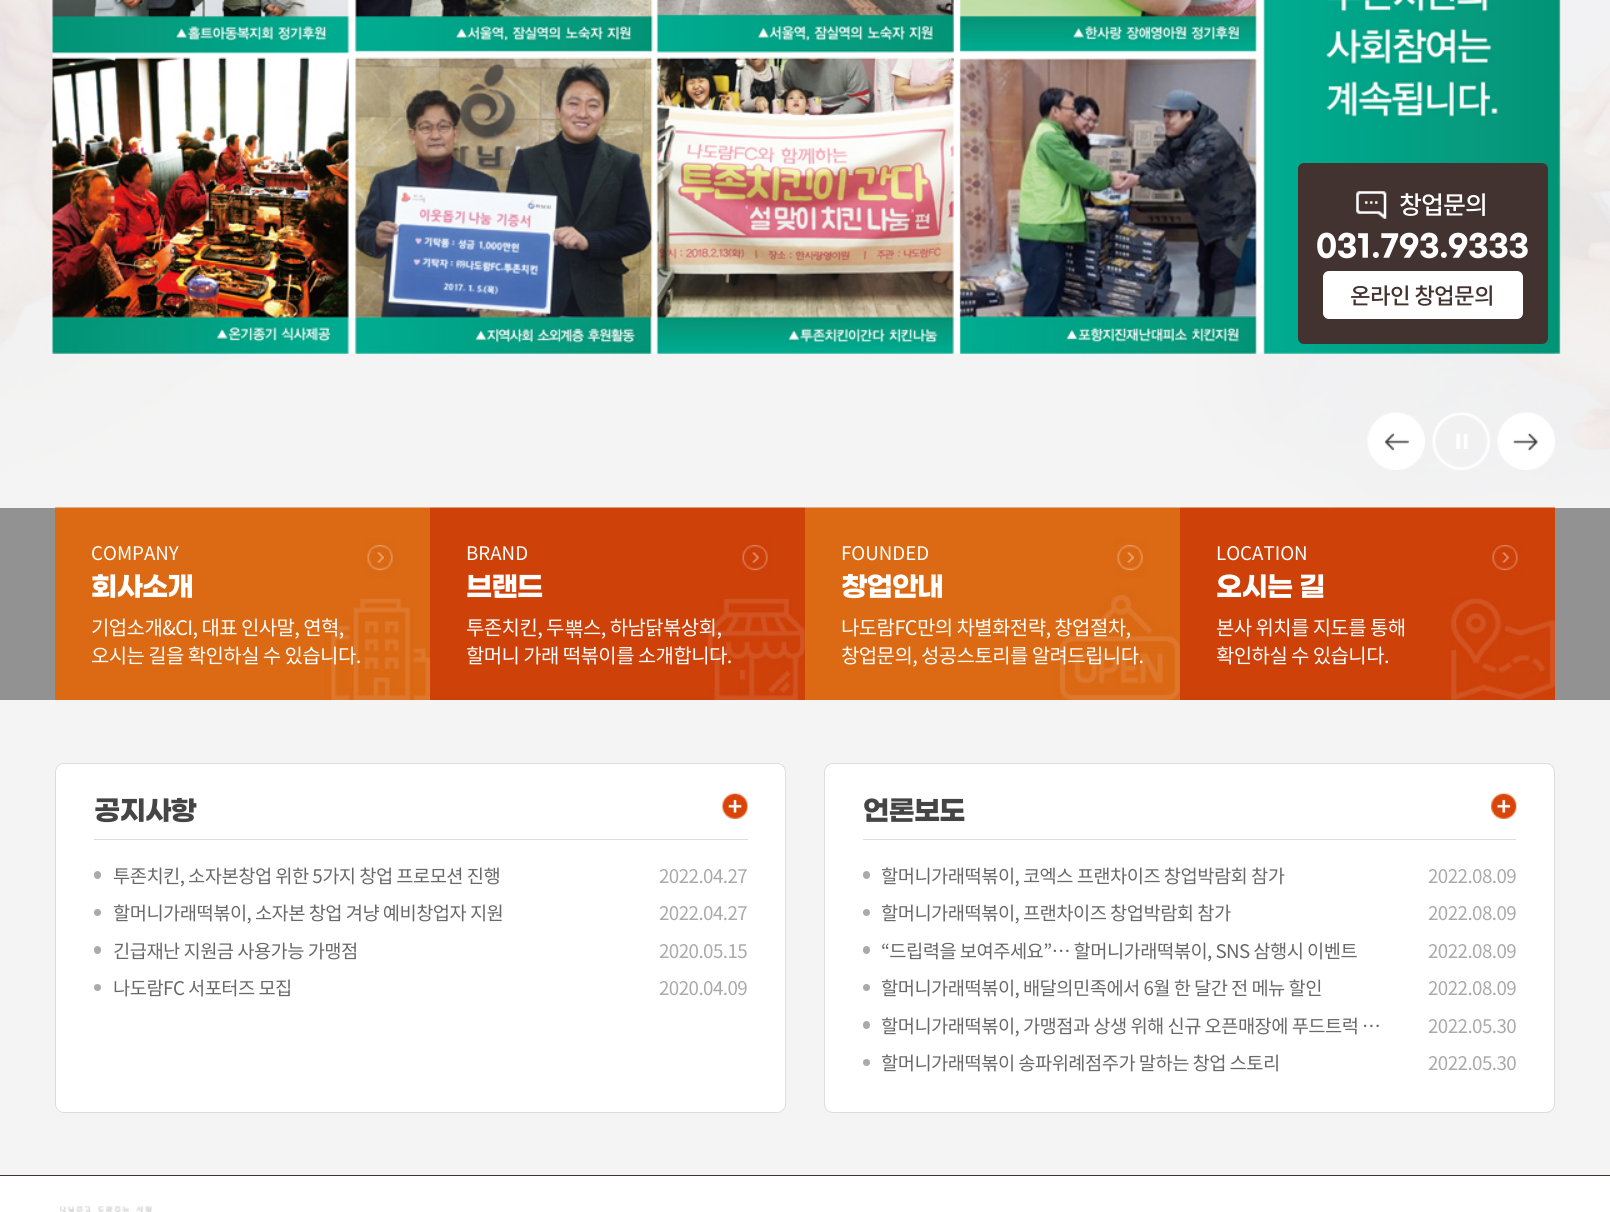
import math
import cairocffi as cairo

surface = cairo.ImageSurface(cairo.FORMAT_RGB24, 1610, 1212)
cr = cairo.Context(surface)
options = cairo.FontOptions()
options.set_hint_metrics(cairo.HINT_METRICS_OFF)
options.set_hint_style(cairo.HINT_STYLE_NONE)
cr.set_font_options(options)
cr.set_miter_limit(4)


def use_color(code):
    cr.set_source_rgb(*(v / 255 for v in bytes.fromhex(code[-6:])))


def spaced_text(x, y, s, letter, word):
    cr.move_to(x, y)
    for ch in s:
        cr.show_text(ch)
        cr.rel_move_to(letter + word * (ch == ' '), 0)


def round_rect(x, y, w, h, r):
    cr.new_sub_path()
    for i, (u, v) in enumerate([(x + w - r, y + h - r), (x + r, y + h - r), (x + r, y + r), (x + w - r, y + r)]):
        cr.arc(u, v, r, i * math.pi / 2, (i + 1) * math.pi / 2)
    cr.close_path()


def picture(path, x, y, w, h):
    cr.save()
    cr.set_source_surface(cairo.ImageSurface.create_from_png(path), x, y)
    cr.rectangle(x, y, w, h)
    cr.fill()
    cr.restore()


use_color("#ffffff")
cr.paint()
picture("img2.png", 0, 0, 1610, 700)
use_color("#423230")
round_rect(1298, 163, 250, 181, 6)
cr.fill()
picture("img1.png", 1356, 191, 31, 28)
cr.select_font_face("Noto Sans KR Medium")
cr.set_font_size(25)
use_color("#ffffff")
spaced_text(1399, 214, "창업문의", -1, 0)
cr.select_font_face("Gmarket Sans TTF", cairo.FONT_SLANT_NORMAL, cairo.FONT_WEIGHT_BOLD)
cr.set_font_size(30)
cr.move_to(1316, 255)
cr.show_text("031.793.9333")
round_rect(1323, 271, 200, 48, 6)
cr.fill()
cr.select_font_face("Noto Sans KR Medium")
cr.set_font_size(22.5)
use_color("#423230")
spaced_text(1350, 304, "온라인 창업문의", -0.75, 0)
picture("img3.png", 1367, 412, 58, 58)
picture("img4.png", 1497, 412, 58, 58)
picture("img5.png", 1432, 412, 58, 58)
cr.set_source_rgba(0, 0, 0, 0.4)
cr.rectangle(0, 508, 1610, 192)
cr.fill()
picture("img6.png", 55, 507, 375, 193)
cr.select_font_face("Noto Sans KR")
cr.set_font_size(18.75)
use_color("#ffffff")
cr.move_to(91, 560)
cr.show_text("COMPANY")
cr.select_font_face("Gmarket Sans TTF", cairo.FONT_SLANT_NORMAL, cairo.FONT_WEIGHT_BOLD)
cr.set_font_size(27.5)
spaced_text(91, 595, "회사소개", -1, 0)
cr.select_font_face("Noto Sans KR")
cr.set_font_size(20)
spaced_text(91, 635, "기업소개&CI, 대표 인사말, 연혁,", -0.6, 0)
spaced_text(91, 663, "오시는 길을 확인하실 수 있습니다.", -0.6, 0)
picture("img7.png", 430, 507, 375, 193)
cr.set_font_size(18.75)
cr.move_to(466, 560)
cr.show_text("BRAND")
cr.select_font_face("Gmarket Sans TTF", cairo.FONT_SLANT_NORMAL, cairo.FONT_WEIGHT_BOLD)
cr.set_font_size(27.5)
spaced_text(466, 595, "브랜드", -1, 0)
cr.select_font_face("Noto Sans KR")
cr.set_font_size(20)
spaced_text(466, 635, "투존치킨, 두", -0.6, 0)
cr.select_font_face("WenQuanYi Zen Hei Medium")
spaced_text(564, 635, "뽂", -0.6, 0)
cr.select_font_face("Noto Sans KR")
spaced_text(583, 635, "스, 하남닭볶상회,", -0.6, 0)
spaced_text(466, 663, "할머니 가래 떡볶이를 소개합니다.", -0.6, 0)
picture("img8.png", 805, 507, 375, 193)
cr.set_font_size(18.75)
cr.move_to(841, 560)
cr.show_text("FOUNDED")
cr.select_font_face("Gmarket Sans TTF", cairo.FONT_SLANT_NORMAL, cairo.FONT_WEIGHT_BOLD)
cr.set_font_size(27.5)
spaced_text(841, 595, "창업안내", -1, 0)
cr.select_font_face("Noto Sans KR")
cr.set_font_size(20)
spaced_text(841, 635, "나도람FC만의 차별화전략, 창업절차,", -0.6, 0)
spaced_text(841, 663, "창업문의, 성공스토리를 알려드립니다.", -0.6, 0)
picture("img9.png", 1180, 507, 375, 193)
cr.set_font_size(18.75)
cr.move_to(1216, 560)
cr.show_text("LOCATION")
cr.select_font_face("Gmarket Sans TTF", cairo.FONT_SLANT_NORMAL, cairo.FONT_WEIGHT_BOLD)
cr.set_font_size(27.5)
spaced_text(1216, 595, "오시는 길", -1, 0)
cr.select_font_face("Noto Sans KR")
cr.set_font_size(20)
spaced_text(1216, 635, "본사 위치를 지도를 통해", -0.6, 0)
spaced_text(1216, 663, "확인하실 수 있습니다.", -0.6, 0)
use_color("#f4f4f4")
cr.rectangle(0, 700, 1610, 475)
cr.fill()
use_color("#ffffff")
round_rect(55.5, 763.5, 730, 349, 8.5)
cr.fill_preserve()
use_color("#dddddd")
cr.set_line_width(1)
cr.stroke()
cr.rectangle(94, 839, 654, 1)
cr.fill()
cr.select_font_face("Gmarket Sans TTF", cairo.FONT_SLANT_NORMAL, cairo.FONT_WEIGHT_BOLD)
cr.set_font_size(27.5)
use_color("#454545")
spaced_text(94, 819, "공지사항", -1, 0)
picture("img10.png", 722, 793, 26, 26)
use_color("#aaaaaa")
round_rect(94, 871, 7, 8, 3.5)
cr.fill()
cr.select_font_face("Noto Sans KR")
cr.set_font_size(18.75)
use_color("#686868")
spaced_text(113, 883, "투존치킨, 소자본창업 위한 5가지 창업 프로모션 진행", -0.55, 0)
use_color("#aaaaaa")
spaced_text(659, 883, "2022.04.27", -0.55, 0)
cr.new_path()
cr.arc(97.5, 912.5, 3.5, 0, 2 * math.pi)
cr.fill()
use_color("#686868")
spaced_text(113, 920, "할머니가래떡볶이, 소자본 창업 겨냥 예비창업자 지원", -0.55, 0)
use_color("#aaaaaa")
spaced_text(659, 920, "2022.04.27", -0.55, 0)
round_rect(94, 946, 7, 8, 3.5)
cr.fill()
use_color("#686868")
spaced_text(113, 958, "긴급재난 지원금 사용가능 가맹점", -0.55, 0)
use_color("#aaaaaa")
spaced_text(659, 958, "2020.05.15", -0.55, 0)
cr.new_path()
cr.arc(97.5, 987.5, 3.5, 0, 2 * math.pi)
cr.fill()
use_color("#686868")
spaced_text(113, 995, "나도람FC 서포터즈 모집", -0.55, 0)
use_color("#aaaaaa")
spaced_text(659, 995, "2020.04.09", -0.55, 0)
use_color("#ffffff")
round_rect(824.5, 763.5, 730, 349, 8.5)
cr.fill_preserve()
use_color("#dddddd")
cr.stroke()
cr.rectangle(863, 839, 653, 1)
cr.fill()
cr.select_font_face("Gmarket Sans TTF", cairo.FONT_SLANT_NORMAL, cairo.FONT_WEIGHT_BOLD)
cr.set_font_size(27.5)
use_color("#454545")
spaced_text(863, 819, "언론보도", -1, 0)
picture("img11.png", 1491, 793, 26, 26)
use_color("#aaaaaa")
round_rect(863, 871, 7, 8, 3.5)
cr.fill()
cr.select_font_face("Noto Sans KR")
cr.set_font_size(18.75)
use_color("#686868")
spaced_text(881, 883, "할머니가래떡볶이, 코엑스 프랜차이즈 창업박람회 참가", -0.55, 0)
use_color("#aaaaaa")
spaced_text(1428, 883, "2022.08.09", -0.55, 0)
cr.new_path()
cr.arc(866.5, 912.5, 3.5, 0, 2 * math.pi)
cr.fill()
use_color("#686868")
spaced_text(881, 920, "할머니가래떡볶이, 프랜차이즈 창업박람회 참가", -0.55, 0)
use_color("#aaaaaa")
spaced_text(1428, 920, "2022.08.09", -0.55, 0)
round_rect(863, 946, 7, 8, 3.5)
cr.fill()
use_color("#686868")
spaced_text(881, 958, "“드립력을 보여주세요”… 할머니가래떡볶이, SNS 삼행시 이벤트", -0.55, 0)
use_color("#aaaaaa")
spaced_text(1428, 958, "2022.08.09", -0.55, 0)
cr.new_path()
cr.arc(866.5, 987.5, 3.5, 0, 2 * math.pi)
cr.fill()
use_color("#686868")
spaced_text(881, 995, "할머니가래떡볶이, 배달의민족에서 6월 한 달간 전 메뉴 할인", -0.55, 0)
use_color("#aaaaaa")
spaced_text(1428, 995, "2022.08.09", -0.55, 0)
round_rect(863, 1021, 7, 8, 3.5)
cr.fill()
use_color("#686868")
spaced_text(881, 1033, "할머니가래떡볶이, 가맹점과 상생 위해 신규 오픈매장에 푸드트럭 …", -0.55, 0)
use_color("#aaaaaa")
spaced_text(1428, 1033, "2022.05.30", -0.55, 0)
cr.new_path()
cr.arc(866.5, 1062.5, 3.5, 0, 2 * math.pi)
cr.fill()
use_color("#686868")
spaced_text(881, 1070, "할머니가래떡볶이 송파위례점주가 말하는 창업 스토리", -0.55, 0)
use_color("#aaaaaa")
spaced_text(1428, 1070, "2022.05.30", -0.55, 0)
use_color("#423230")
cr.rectangle(0, 1175, 1610, 1)
cr.fill()
picture("img12.png", 60, 1206, 93, 6)
surface.write_to_png("result.png")
